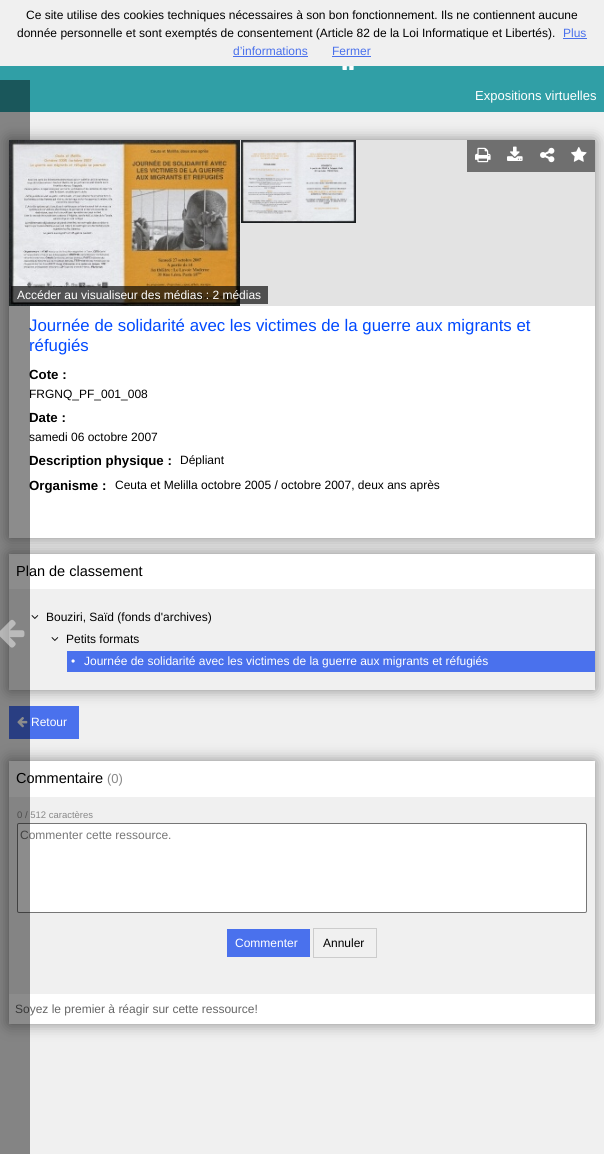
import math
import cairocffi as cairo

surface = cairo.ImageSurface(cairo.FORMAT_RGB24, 604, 1154)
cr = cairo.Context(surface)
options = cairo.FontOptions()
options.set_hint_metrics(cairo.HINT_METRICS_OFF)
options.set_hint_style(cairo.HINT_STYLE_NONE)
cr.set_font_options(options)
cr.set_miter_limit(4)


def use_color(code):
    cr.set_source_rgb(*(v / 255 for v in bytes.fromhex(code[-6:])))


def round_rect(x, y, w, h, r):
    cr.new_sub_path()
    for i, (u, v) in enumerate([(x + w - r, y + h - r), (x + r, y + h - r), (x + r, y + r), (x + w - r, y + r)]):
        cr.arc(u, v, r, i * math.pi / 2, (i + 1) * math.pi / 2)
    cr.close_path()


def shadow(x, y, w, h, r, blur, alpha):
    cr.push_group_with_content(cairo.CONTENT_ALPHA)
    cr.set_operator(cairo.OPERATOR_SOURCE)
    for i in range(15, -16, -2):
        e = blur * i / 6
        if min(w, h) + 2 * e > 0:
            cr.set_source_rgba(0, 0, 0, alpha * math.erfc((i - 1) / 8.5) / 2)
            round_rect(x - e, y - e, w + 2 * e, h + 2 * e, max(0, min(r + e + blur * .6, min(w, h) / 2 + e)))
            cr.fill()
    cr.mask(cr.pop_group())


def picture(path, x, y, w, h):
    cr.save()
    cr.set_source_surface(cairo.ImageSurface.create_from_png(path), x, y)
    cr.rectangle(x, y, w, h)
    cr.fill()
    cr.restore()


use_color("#f0f0f0")
cr.paint()
cr.select_font_face("Liberation Sans")
cr.set_font_size(12)
use_color("#000000")
cr.move_to(26, 19)
cr.show_text("Ce site utilise des cookies techniques nécessaires à son bon fonctionnement. Ils ne contiennent aucune")
cr.move_to(17, 37)
cr.show_text("donnée personnelle et sont exemptés de consentement (Article 82 de la Loi Informatique et Libertés).")
use_color("#4970ec")
cr.move_to(563, 37)
cr.show_text("Plus")
cr.rectangle(563, 38, 24, 1)
cr.fill()
cr.move_to(233, 55)
cr.show_text("d’informations")
cr.rectangle(233, 56, 75, 1)
cr.fill()
cr.move_to(332, 55)
cr.show_text("Fermer")
cr.rectangle(332, 56, 39, 1)
cr.fill()
use_color("#309fa6")
cr.rectangle(0, 66, 604, 46)
cr.fill()
cr.save()
cr.set_fill_rule(cairo.FILL_RULE_EVEN_ODD)
cr.new_path()
cr.move_to(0, 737)
cr.line_to(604, 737)
cr.line_to(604, 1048)
cr.line_to(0, 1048)
cr.close_path()
cr.move_to(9, 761)
cr.line_to(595, 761)
cr.line_to(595, 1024)
cr.line_to(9, 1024)
cr.close_path()
cr.clip()
use_color("#888888")
shadow(9, 761, 586, 263, 0, 7.5, 1)
cr.restore()
use_color("#4a71ed")
cr.rectangle(9, 706, 70, 33)
cr.fill()
cr.save()
cr.set_fill_rule(cairo.FILL_RULE_EVEN_ODD)
cr.new_path()
cr.move_to(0, 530)
cr.line_to(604, 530)
cr.line_to(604, 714)
cr.line_to(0, 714)
cr.close_path()
cr.move_to(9, 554)
cr.line_to(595, 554)
cr.line_to(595, 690)
cr.line_to(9, 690)
cr.close_path()
cr.clip()
use_color("#888888")
shadow(9, 554, 586, 136, 0, 7.5, 1)
cr.restore()
use_color("#ffffff")
cr.rectangle(9, 554, 586, 35)
cr.fill()
use_color("#888888")
shadow(9, 140, 586, 398, 0, 7.5, 1)
use_color("#ffffff")
cr.rectangle(9, 306, 586, 232)
cr.fill()
cr.set_font_size(16.8)
use_color("#0049ff")
cr.move_to(29, 331)
cr.show_text("Journée de solidarité avec les victimes de la guerre aux migrants et")
cr.select_font_face("Liberation Sans", cairo.FONT_SLANT_NORMAL, cairo.FONT_WEIGHT_BOLD)
cr.set_font_size(13.25)
use_color("#000000")
cr.move_to(29, 379)
cr.show_text("Cote :")
cr.move_to(29, 422)
cr.show_text("Date :")
cr.select_font_face("Liberation Sans")
cr.set_font_size(12)
cr.move_to(29, 441)
cr.show_text("samedi 06 octobre 2007")
cr.select_font_face("Liberation Sans", cairo.FONT_SLANT_NORMAL, cairo.FONT_WEIGHT_BOLD)
cr.set_font_size(13.25)
cr.move_to(29, 465)
cr.show_text("Description physique :")
cr.move_to(29, 490)
cr.show_text("Organisme :")
cr.select_font_face("Liberation Sans")
cr.set_font_size(14.5)
cr.move_to(16, 576)
cr.show_text("Plan de classement")
picture("img10.png", 17, 717, 11, 11)
use_color("#ffffff")
cr.rectangle(9, 761, 586, 36)
cr.fill()
use_color("#000000")
cr.move_to(16, 783)
cr.show_text("Commentaire")
cr.set_font_size(9.5)
use_color("#888888")
cr.move_to(17, 818)
cr.show_text("0 / 512 caractères")
use_color("#ffffff")
round_rect(17.5, 823.5, 569, 89, 1.5)
cr.fill_preserve()
use_color("#767676")
cr.set_line_width(1)
cr.stroke()
cr.set_font_size(12)
use_color("#777777")
cr.move_to(20, 839)
cr.show_text("Commenter cette ressource.")
use_color("#ffffff")
cr.rectangle(9, 994, 586, 30)
cr.fill()
use_color("#666666")
cr.move_to(15, 1013)
cr.show_text("Soyez le premier à réagir sur cette ressource!")
cr.set_source_rgba(0, 0, 0, 0.45)
cr.rectangle(0, 80, 30, 1074)
cr.fill()
picture("img1.png", 0, 619, 25, 29)
picture("img2.png", 342, 66, 12, 4)
cr.set_font_size(13)
use_color("#ffffff")
cr.move_to(475, 100)
cr.show_text("Expositions virtuelles")
use_color("#e3e3e3")
cr.rectangle(240, 140, 355, 166)
cr.fill()
use_color("#6f6f6f")
cr.rectangle(467, 140, 64, 32)
cr.fill()
picture("img3.png", 475, 147, 16, 16)
cr.rectangle(531, 140, 64, 32)
cr.fill()
picture("img4.png", 571, 147, 16, 15)
picture("img5.png", 507, 146, 16, 15)
picture("img6.png", 540, 147, 15, 16)
picture("img7.png", 9, 140, 231, 166)
picture("img8.png", 241, 140, 115, 83)
cr.set_source_rgba(0, 0, 0, 0.65)
cr.rectangle(11, 286, 257, 18)
cr.fill()
cr.set_font_size(12)
use_color("#ffffff")
cr.move_to(17, 299)
cr.show_text("Accéder au visualiseur des médias : 2 médias")
cr.set_font_size(16.8)
use_color("#0049ff")
cr.move_to(29, 351)
cr.show_text("réfugiés")
cr.set_font_size(12)
use_color("#000000")
cr.move_to(29, 398)
cr.show_text("FRGNQ_PF_001_008")
cr.move_to(180, 464)
cr.show_text("Dépliant")
cr.move_to(115, 489)
cr.show_text("Ceuta et Melilla octobre 2005 / octobre 2007, deux ans après")
picture("img9.png", 31, 615, 8, 4)
cr.move_to(46, 621)
cr.show_text("Bouziri, Saïd (fonds d'archives)")
picture("img9.png", 51, 637, 8, 4)
cr.move_to(66, 643)
cr.show_text("Petits formats")
use_color("#4a71ed")
cr.rectangle(67, 651, 528, 21)
cr.fill()
use_color("#ffffff")
cr.move_to(71, 665)
cr.show_text("•")
cr.move_to(84, 665)
cr.show_text("Journée de solidarité avec les victimes de la guerre aux migrants et réfugiés")
cr.move_to(31, 726)
cr.show_text("Retour")
cr.set_font_size(13)
use_color("#888888")
cr.move_to(107, 783)
cr.show_text("(0)")
use_color("#4a71ed")
cr.rectangle(227, 929, 83, 28)
cr.fill()
cr.set_font_size(12)
use_color("#ffffff")
cr.move_to(235, 947)
cr.show_text("Commenter")
cr.rectangle(313.5, 928.5, 63, 29)
use_color("#cccccc")
cr.stroke()
use_color("#000000")
cr.move_to(323, 947)
cr.show_text("Annuler")
surface.write_to_png("result.png")
